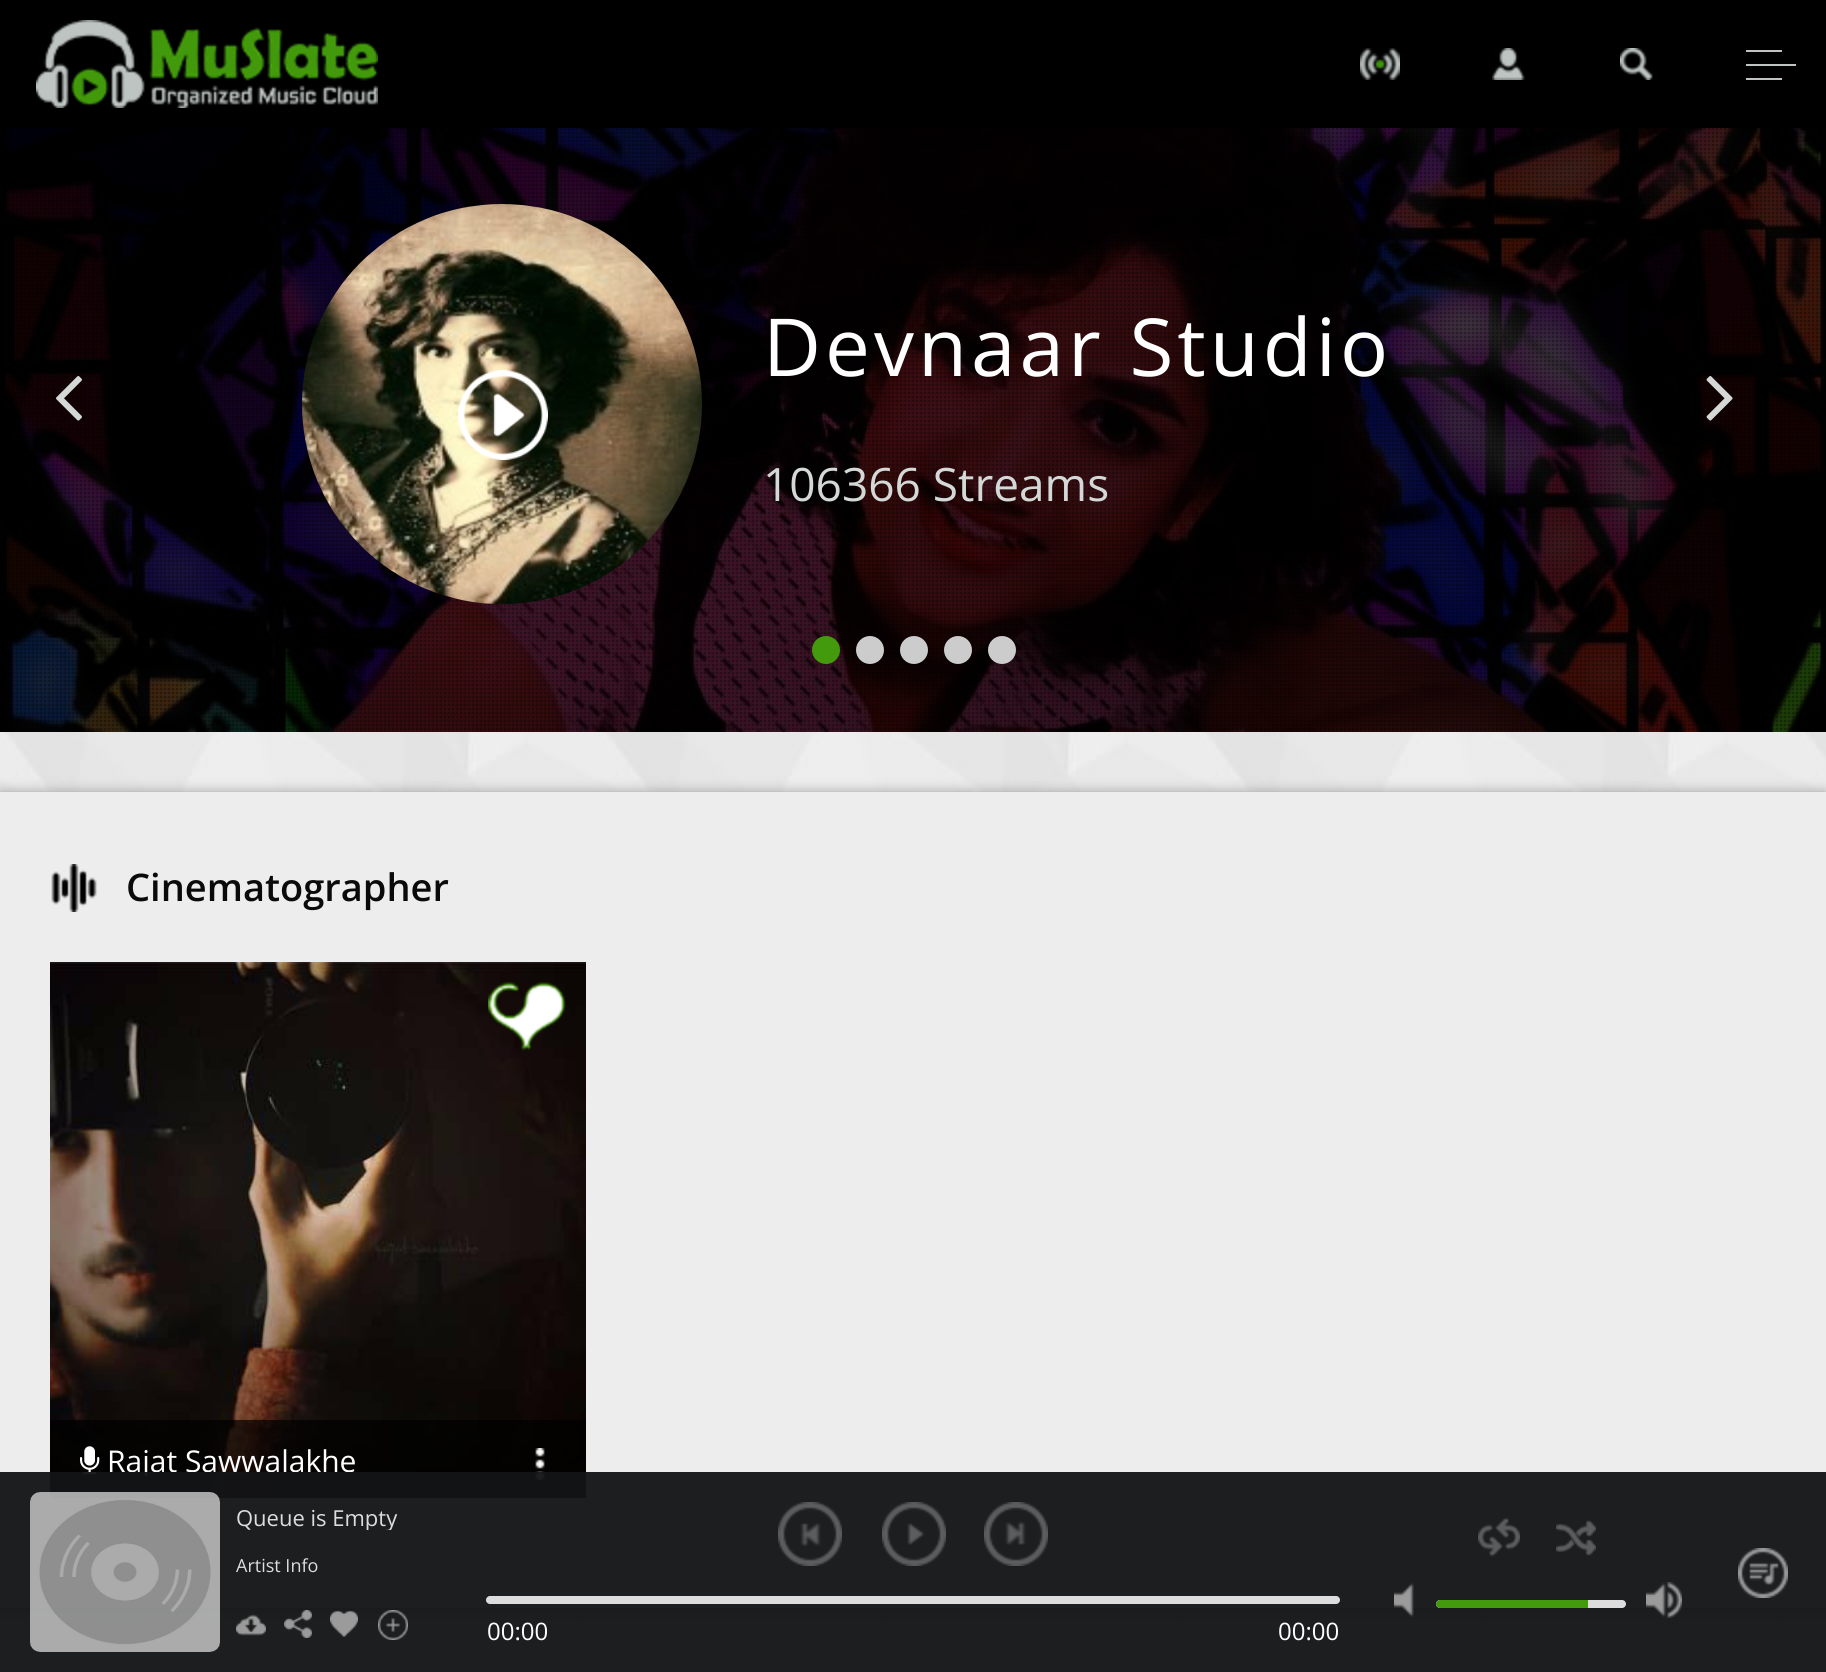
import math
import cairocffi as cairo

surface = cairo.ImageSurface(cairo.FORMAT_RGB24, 1826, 1672)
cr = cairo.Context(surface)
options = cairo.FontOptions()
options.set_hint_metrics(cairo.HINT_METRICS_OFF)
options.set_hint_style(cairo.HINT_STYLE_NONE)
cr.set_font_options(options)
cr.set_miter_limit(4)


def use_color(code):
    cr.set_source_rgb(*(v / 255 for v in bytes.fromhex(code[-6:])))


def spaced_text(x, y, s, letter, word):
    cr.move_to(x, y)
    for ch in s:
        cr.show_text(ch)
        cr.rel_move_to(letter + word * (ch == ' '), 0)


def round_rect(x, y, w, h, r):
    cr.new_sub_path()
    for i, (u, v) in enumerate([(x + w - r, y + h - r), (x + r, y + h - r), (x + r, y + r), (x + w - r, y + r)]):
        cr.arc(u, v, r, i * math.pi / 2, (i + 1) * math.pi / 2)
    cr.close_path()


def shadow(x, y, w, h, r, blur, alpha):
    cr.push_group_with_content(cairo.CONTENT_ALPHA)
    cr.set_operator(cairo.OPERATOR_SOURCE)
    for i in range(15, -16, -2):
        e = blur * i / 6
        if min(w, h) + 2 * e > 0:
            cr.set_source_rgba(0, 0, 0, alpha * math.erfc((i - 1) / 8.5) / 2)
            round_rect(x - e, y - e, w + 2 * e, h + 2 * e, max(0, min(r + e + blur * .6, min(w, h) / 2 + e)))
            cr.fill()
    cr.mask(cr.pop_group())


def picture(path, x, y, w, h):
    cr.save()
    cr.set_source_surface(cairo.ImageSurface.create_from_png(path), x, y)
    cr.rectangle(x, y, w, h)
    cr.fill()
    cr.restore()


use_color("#ffffff")
cr.paint()
picture("img1.png", 0, 732, 1826, 940)
use_color("#000000")
cr.rectangle(0, 0, 1826, 128)
cr.fill()
picture("img2.png", 36, 20, 342, 88)
picture("img3.png", 1360, 48, 40, 32)
picture("img4.png", 1492, 48, 33, 32)
picture("img5.png", 1620, 48, 33, 32)
use_color("#bdc4c2")
cr.rectangle(1746, 50, 36, 2)
cr.fill()
cr.rectangle(1746, 64, 50, 2)
cr.fill()
cr.rectangle(1746, 78, 36, 2)
cr.fill()
picture("img8.png", 0, 128, 1826, 604)
picture("img6.png", 0, 128, 1826, 604)
cr.set_source_rgba(0, 0, 0, 0.75)
cr.rectangle(0, 128, 1826, 604)
cr.fill()
picture("img7.png", 56, 376, 26, 45)
picture("img9.png", 302, 204, 400, 400)
picture("img10.png", 458, 370, 90, 90)
cr.select_font_face("Open Sans")
cr.set_font_size(80)
use_color("#ffffff")
spaced_text(763, 376, "Devnaar Studio", 4, 0)
cr.set_font_size(46)
use_color("#d4d9d8")
cr.move_to(763, 501)
cr.show_text("106366 Streams")
picture("img11.png", 1706, 376, 27, 45)
use_color("#429a0c")
cr.arc(826, 650, 14, 0, 2 * math.pi)
cr.fill()
use_color("#cccccc")
cr.arc(870, 650, 14, 0, 2 * math.pi)
cr.fill()
cr.arc(914, 650, 14, 0, 2 * math.pi)
cr.fill()
cr.arc(958, 650, 14, 0, 2 * math.pi)
cr.fill()
cr.arc(1002, 650, 14, 0, 2 * math.pi)
cr.fill()
cr.save()
cr.set_fill_rule(cairo.FILL_RULE_EVEN_ODD)
cr.new_path()
cr.move_to(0, 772)
cr.line_to(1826, 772)
cr.line_to(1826, 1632)
cr.line_to(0, 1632)
cr.close_path()
cr.move_to(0, 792)
cr.line_to(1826, 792)
cr.line_to(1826, 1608)
cr.line_to(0, 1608)
cr.close_path()
cr.clip()
use_color("#888888")
shadow(0, 794, 1826, 816, 0, 7, 1)
cr.restore()
cr.set_source_rgba(0.933, 0.933, 0.933, 0.95)
cr.rectangle(0, 792, 1826, 816)
cr.fill()
picture("img12.png", 51, 864, 46, 48)
cr.select_font_face("Open Sans SemiBold")
cr.set_font_size(38)
use_color("#0a0a0a")
cr.move_to(126, 901)
cr.show_text("Cinematographer")
picture("img13.png", 50, 962, 536, 536)
picture("img14.png", 488, 982, 78, 69)
cr.set_source_rgba(0, 0, 0, 0.7)
cr.rectangle(50, 1420, 536, 78)
cr.fill()
picture("img15.png", 80, 1446, 20, 29)
cr.save()
cr.rectangle(80, 1444, 396, 32)
cr.clip()
cr.select_font_face("Open Sans")
cr.set_font_size(30)
use_color("#ffffff")
cr.move_to(107, 1472)
cr.show_text("Rajat Sawwalakhe")
cr.restore()
picture("img16.png", 535, 1448, 10, 32)
cr.set_source_rgba(0.078, 0.082, 0.09, 0.95)
cr.rectangle(0, 1472, 1826, 200)
cr.fill()
picture("img17.png", 30, 1492, 190, 160)
cr.save()
cr.rectangle(236, 1504, 190, 26)
cr.clip()
cr.select_font_face("Open Sans")
cr.set_font_size(22)
use_color("#dddddd")
cr.move_to(236, 1526)
cr.show_text("Queue is Empty")
cr.restore()
cr.select_font_face("Open Sans")
cr.set_font_size(18)
use_color("#dddddd")
cr.move_to(236, 1572)
cr.show_text("Artist Info")
picture("img18.png", 236, 1614, 30, 22)
picture("img19.png", 284, 1610, 28, 28)
picture("img20.png", 330, 1610, 28, 27)
picture("img21.png", 378, 1610, 30, 30)
picture("img22.png", 1478, 1517, 42, 40)
picture("img23.png", 1556, 1520, 40, 36)
picture("img24.png", 1394, 1583, 20, 34)
round_rect(1436, 1600, 190, 8, 4)
cr.fill()
use_color("#429a0c")
cr.new_path()
cr.move_to(1440, 1600)
cr.line_to(1588, 1600)
cr.line_to(1588, 1608)
cr.line_to(1440, 1608)
cr.curve_to(1438, 1608, 1436, 1606, 1436, 1604)
cr.curve_to(1436, 1602, 1438, 1600, 1440, 1600)
cr.close_path()
cr.fill()
picture("img25.png", 1646, 1582, 36, 36)
picture("img26.png", 1738, 1548, 50, 50)
picture("img27.png", 778, 1502, 64, 64)
picture("img28.png", 882, 1502, 64, 64)
picture("img29.png", 984, 1502, 64, 64)
use_color("#dddddd")
round_rect(486, 1596, 854, 8, 4)
cr.fill()
cr.set_font_size(24)
use_color("#ffffff")
cr.move_to(487, 1640)
cr.show_text("00:00")
cr.move_to(1278, 1640)
cr.show_text("00:00")
surface.write_to_png("result.png")
